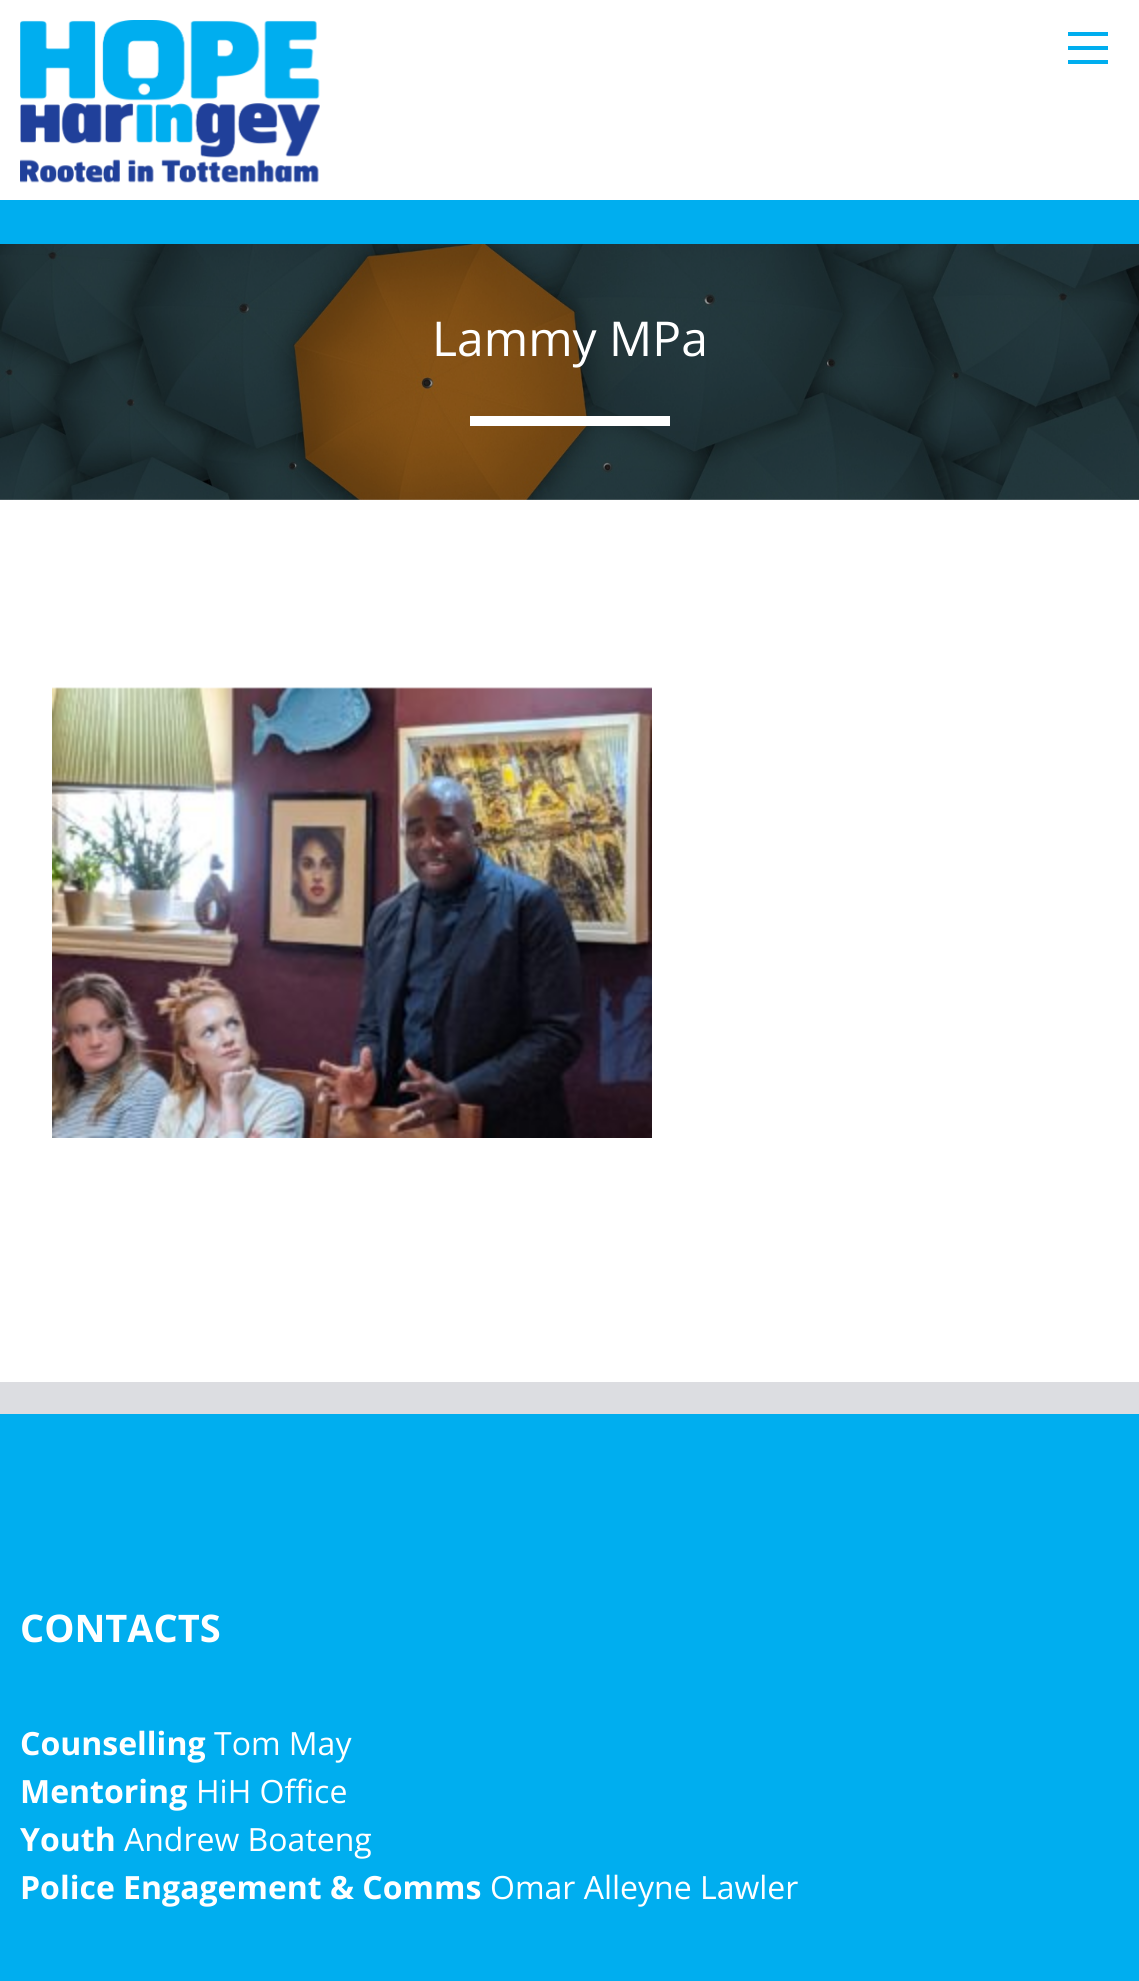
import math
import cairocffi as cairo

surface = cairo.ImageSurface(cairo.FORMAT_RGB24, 1139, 1981)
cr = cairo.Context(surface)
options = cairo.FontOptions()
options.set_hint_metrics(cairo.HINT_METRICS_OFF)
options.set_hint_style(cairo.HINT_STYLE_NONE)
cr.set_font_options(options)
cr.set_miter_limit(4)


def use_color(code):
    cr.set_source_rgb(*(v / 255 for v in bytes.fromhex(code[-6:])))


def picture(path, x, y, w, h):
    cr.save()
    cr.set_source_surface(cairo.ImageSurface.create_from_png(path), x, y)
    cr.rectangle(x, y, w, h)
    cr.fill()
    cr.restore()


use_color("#ffffff")
cr.paint()
picture("img1.png", 20, 20, 300, 163)
use_color("#00aeef")
cr.rectangle(1068, 60, 40, 4)
cr.fill()
cr.rectangle(1068, 46, 40, 4)
cr.fill()
cr.rectangle(1068, 32, 40, 4)
cr.fill()
picture("img2.png", 0, 244, 1139, 256)
cr.rectangle(0, 200, 1139, 44)
cr.fill()
cr.select_font_face("Open Sans")
cr.set_font_size(48)
use_color("#ffffff")
cr.move_to(432, 356)
cr.show_text("Lammy MPa")
cr.rectangle(470, 416, 200, 10)
cr.fill()
picture("img3.png", 52, 687, 600, 451)
use_color("#dcdde1")
cr.rectangle(0, 1382, 1139, 32)
cr.fill()
use_color("#00aeef")
cr.rectangle(0, 1414, 1139, 567)
cr.fill()
cr.select_font_face("Open Sans", cairo.FONT_SLANT_NORMAL, cairo.FONT_WEIGHT_BOLD)
cr.set_font_size(38)
use_color("#ffffff")
cr.move_to(20, 1642)
cr.show_text("CONTACTS")
cr.set_font_size(32)
cr.move_to(20, 1755)
cr.show_text("Counselling")
cr.select_font_face("Open Sans")
cr.move_to(214, 1755)
cr.show_text("Tom May")
cr.select_font_face("Open Sans", cairo.FONT_SLANT_NORMAL, cairo.FONT_WEIGHT_BOLD)
cr.move_to(20, 1803)
cr.show_text("Mentoring")
cr.select_font_face("Open Sans")
cr.move_to(196, 1803)
cr.show_text("HiH Office")
cr.select_font_face("Open Sans", cairo.FONT_SLANT_NORMAL, cairo.FONT_WEIGHT_BOLD)
cr.move_to(20, 1851)
cr.show_text("Youth")
cr.select_font_face("Open Sans")
cr.move_to(124, 1851)
cr.show_text("Andrew Boateng")
cr.select_font_face("Open Sans", cairo.FONT_SLANT_NORMAL, cairo.FONT_WEIGHT_BOLD)
cr.move_to(20, 1899)
cr.show_text("Police Engagement & Comms")
cr.select_font_face("Open Sans")
cr.move_to(490, 1899)
cr.show_text("Omar Alleyne Lawler")
surface.write_to_png("result.png")
